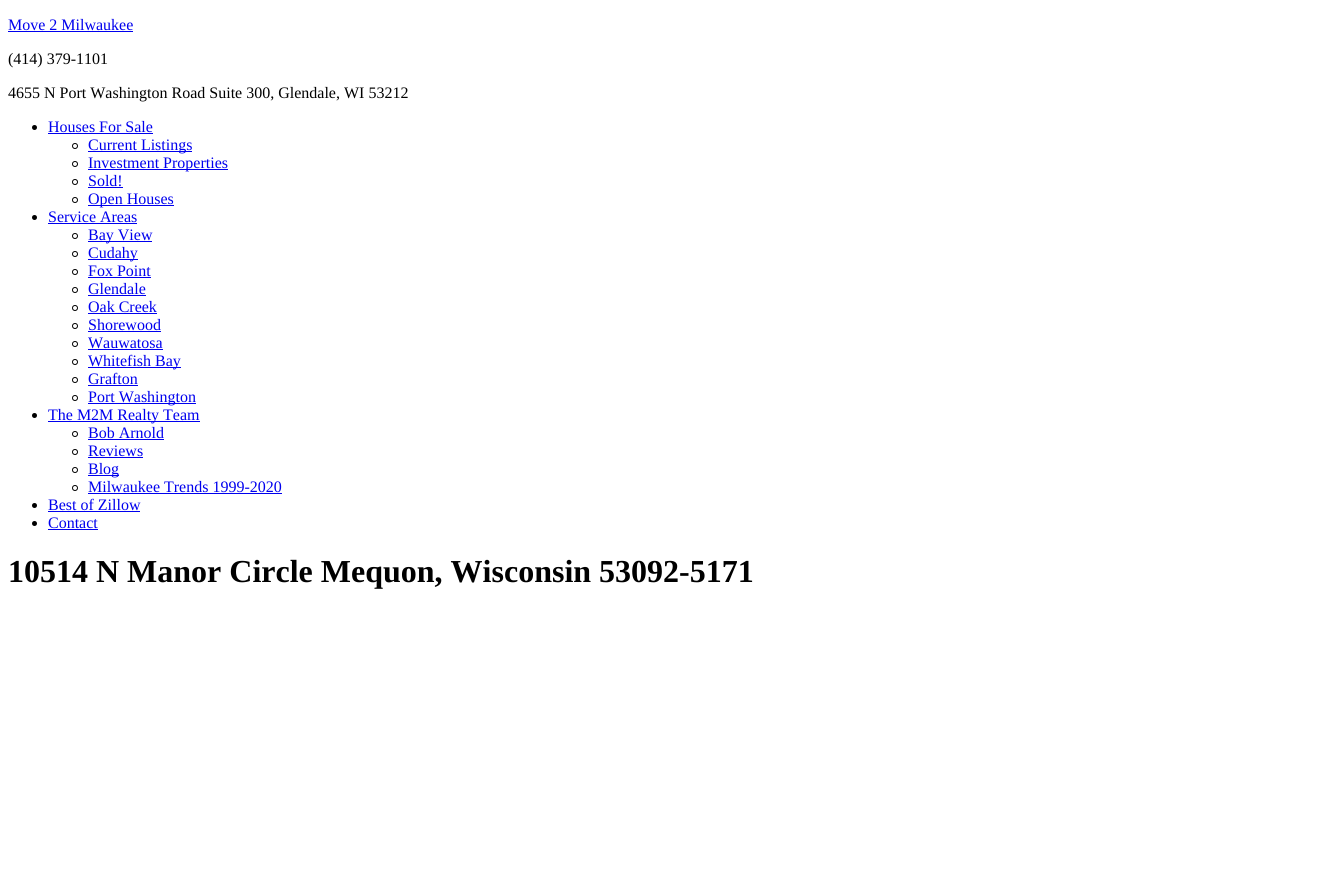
import math
import cairocffi as cairo

surface = cairo.ImageSurface(cairo.FORMAT_RGB24, 1338, 881)
cr = cairo.Context(surface)
options = cairo.FontOptions()
options.set_hint_metrics(cairo.HINT_METRICS_OFF)
options.set_hint_style(cairo.HINT_STYLE_NONE)
cr.set_font_options(options)
cr.set_miter_limit(4)


def use_color(code):
    cr.set_source_rgb(*(v / 255 for v in bytes.fromhex(code[-6:])))


use_color("#ffffff")
cr.paint()
cr.select_font_face("Liberation Serif")
cr.set_font_size(16)
use_color("#0000ee")
cr.move_to(8, 30)
cr.show_text("Move 2 Milwaukee")
cr.rectangle(8, 31, 125, 1)
cr.fill()
use_color("#000000")
cr.move_to(8, 64)
cr.show_text("(414) 379-1101")
cr.move_to(8, 98)
cr.show_text("4655 N Port Washington Road Suite 300, Glendale, WI 53212")
cr.new_path()
cr.arc(34.5, 127.5, 2.5, 0, 2 * math.pi)
cr.fill()
use_color("#0000ee")
cr.move_to(48, 132)
cr.show_text("Houses For Sale")
cr.rectangle(48, 133, 105, 1)
cr.fill()
cr.arc(75, 146, 2.5, 0, 2 * math.pi)
use_color("#000000")
cr.set_line_width(1)
cr.stroke()
use_color("#0000ee")
cr.rectangle(88, 151, 104, 1)
cr.fill()
cr.move_to(88, 150)
cr.show_text("Current Listings")
cr.new_path()
cr.arc(75, 164, 2.5, 0, 2 * math.pi)
use_color("#000000")
cr.stroke()
use_color("#0000ee")
cr.rectangle(88, 169, 140, 1)
cr.fill()
cr.move_to(88, 168)
cr.show_text("Investment Properties")
cr.new_path()
cr.arc(75, 182, 2.5, 0, 2 * math.pi)
use_color("#000000")
cr.stroke()
use_color("#0000ee")
cr.move_to(88, 186)
cr.show_text("Sold!")
cr.rectangle(88, 187, 35, 1)
cr.fill()
cr.arc(75, 200, 2.5, 0, 2 * math.pi)
use_color("#000000")
cr.stroke()
use_color("#0000ee")
cr.rectangle(88, 205, 86, 1)
cr.fill()
cr.move_to(88, 204)
cr.show_text("Open Houses")
use_color("#000000")
cr.new_path()
cr.arc(34.5, 217.5, 2.5, 0, 2 * math.pi)
cr.fill()
use_color("#0000ee")
cr.move_to(48, 222)
cr.show_text("Service Areas")
cr.rectangle(48, 223, 89, 1)
cr.fill()
cr.arc(75, 236, 2.5, 0, 2 * math.pi)
use_color("#000000")
cr.stroke()
use_color("#0000ee")
cr.rectangle(88, 241, 64, 1)
cr.fill()
cr.move_to(88, 240)
cr.show_text("Bay View")
cr.new_path()
cr.arc(75, 254, 2.5, 0, 2 * math.pi)
use_color("#000000")
cr.stroke()
use_color("#0000ee")
cr.rectangle(88, 259, 50, 1)
cr.fill()
cr.move_to(88, 258)
cr.show_text("Cudahy")
cr.new_path()
cr.arc(75, 272, 2.5, 0, 2 * math.pi)
use_color("#000000")
cr.stroke()
use_color("#0000ee")
cr.move_to(88, 276)
cr.show_text("Fox Point")
cr.rectangle(88, 277, 63, 1)
cr.fill()
cr.arc(75, 290, 2.5, 0, 2 * math.pi)
use_color("#000000")
cr.stroke()
use_color("#0000ee")
cr.move_to(88, 294)
cr.show_text("Glendale")
cr.rectangle(88, 295, 58, 1)
cr.fill()
cr.arc(75, 308, 2.5, 0, 2 * math.pi)
use_color("#000000")
cr.stroke()
use_color("#0000ee")
cr.move_to(88, 312)
cr.show_text("Oak Creek")
cr.rectangle(88, 313, 69, 1)
cr.fill()
cr.arc(75, 326, 2.5, 0, 2 * math.pi)
use_color("#000000")
cr.stroke()
use_color("#0000ee")
cr.move_to(88, 330)
cr.show_text("Shorewood")
cr.rectangle(88, 331, 73, 1)
cr.fill()
cr.arc(75, 344, 2.5, 0, 2 * math.pi)
use_color("#000000")
cr.stroke()
use_color("#0000ee")
cr.move_to(88, 348)
cr.show_text("Wauwatosa")
cr.rectangle(88, 349, 75, 1)
cr.fill()
cr.arc(75, 362, 2.5, 0, 2 * math.pi)
use_color("#000000")
cr.stroke()
use_color("#0000ee")
cr.rectangle(88, 367, 93, 1)
cr.fill()
cr.move_to(88, 366)
cr.show_text("Whitefish Bay")
cr.new_path()
cr.arc(75, 380, 2.5, 0, 2 * math.pi)
use_color("#000000")
cr.stroke()
use_color("#0000ee")
cr.move_to(88, 384)
cr.show_text("Grafton")
cr.rectangle(88, 385, 50, 1)
cr.fill()
cr.arc(75, 398, 2.5, 0, 2 * math.pi)
use_color("#000000")
cr.stroke()
use_color("#0000ee")
cr.rectangle(88, 403, 108, 1)
cr.fill()
cr.move_to(88, 402)
cr.show_text("Port Washington")
use_color("#000000")
cr.new_path()
cr.arc(34.5, 415.5, 2.5, 0, 2 * math.pi)
cr.fill()
use_color("#0000ee")
cr.rectangle(48, 421, 152, 1)
cr.fill()
cr.move_to(48, 420)
cr.show_text("The M2M Realty Team")
cr.new_path()
cr.arc(75, 434, 2.5, 0, 2 * math.pi)
use_color("#000000")
cr.stroke()
use_color("#0000ee")
cr.move_to(88, 438)
cr.show_text("Bob Arnold")
cr.rectangle(88, 439, 76, 1)
cr.fill()
cr.arc(75, 452, 2.5, 0, 2 * math.pi)
use_color("#000000")
cr.stroke()
use_color("#0000ee")
cr.move_to(88, 456)
cr.show_text("Reviews")
cr.rectangle(88, 457, 55, 1)
cr.fill()
cr.arc(75, 470, 2.5, 0, 2 * math.pi)
use_color("#000000")
cr.stroke()
use_color("#0000ee")
cr.rectangle(88, 475, 31, 1)
cr.fill()
cr.move_to(88, 474)
cr.show_text("Blog")
cr.new_path()
cr.arc(75, 488, 2.5, 0, 2 * math.pi)
use_color("#000000")
cr.stroke()
use_color("#0000ee")
cr.move_to(88, 492)
cr.show_text("Milwaukee Trends 1999-2020")
cr.rectangle(88, 493, 194, 1)
cr.fill()
use_color("#000000")
cr.arc(34.5, 505.5, 2.5, 0, 2 * math.pi)
cr.fill()
use_color("#0000ee")
cr.move_to(48, 510)
cr.show_text("Best of Zillow")
cr.rectangle(48, 511, 92, 1)
cr.fill()
use_color("#000000")
cr.arc(34.5, 523.5, 2.5, 0, 2 * math.pi)
cr.fill()
use_color("#0000ee")
cr.move_to(48, 528)
cr.show_text("Contact")
cr.rectangle(48, 529, 50, 1)
cr.fill()
cr.select_font_face("Liberation Serif", cairo.FONT_SLANT_NORMAL, cairo.FONT_WEIGHT_BOLD)
cr.set_font_size(32)
use_color("#000000")
cr.move_to(8, 582)
cr.show_text("10514 N Manor Circle Mequon, Wisconsin 53092-5171")
surface.write_to_png("result.png")
